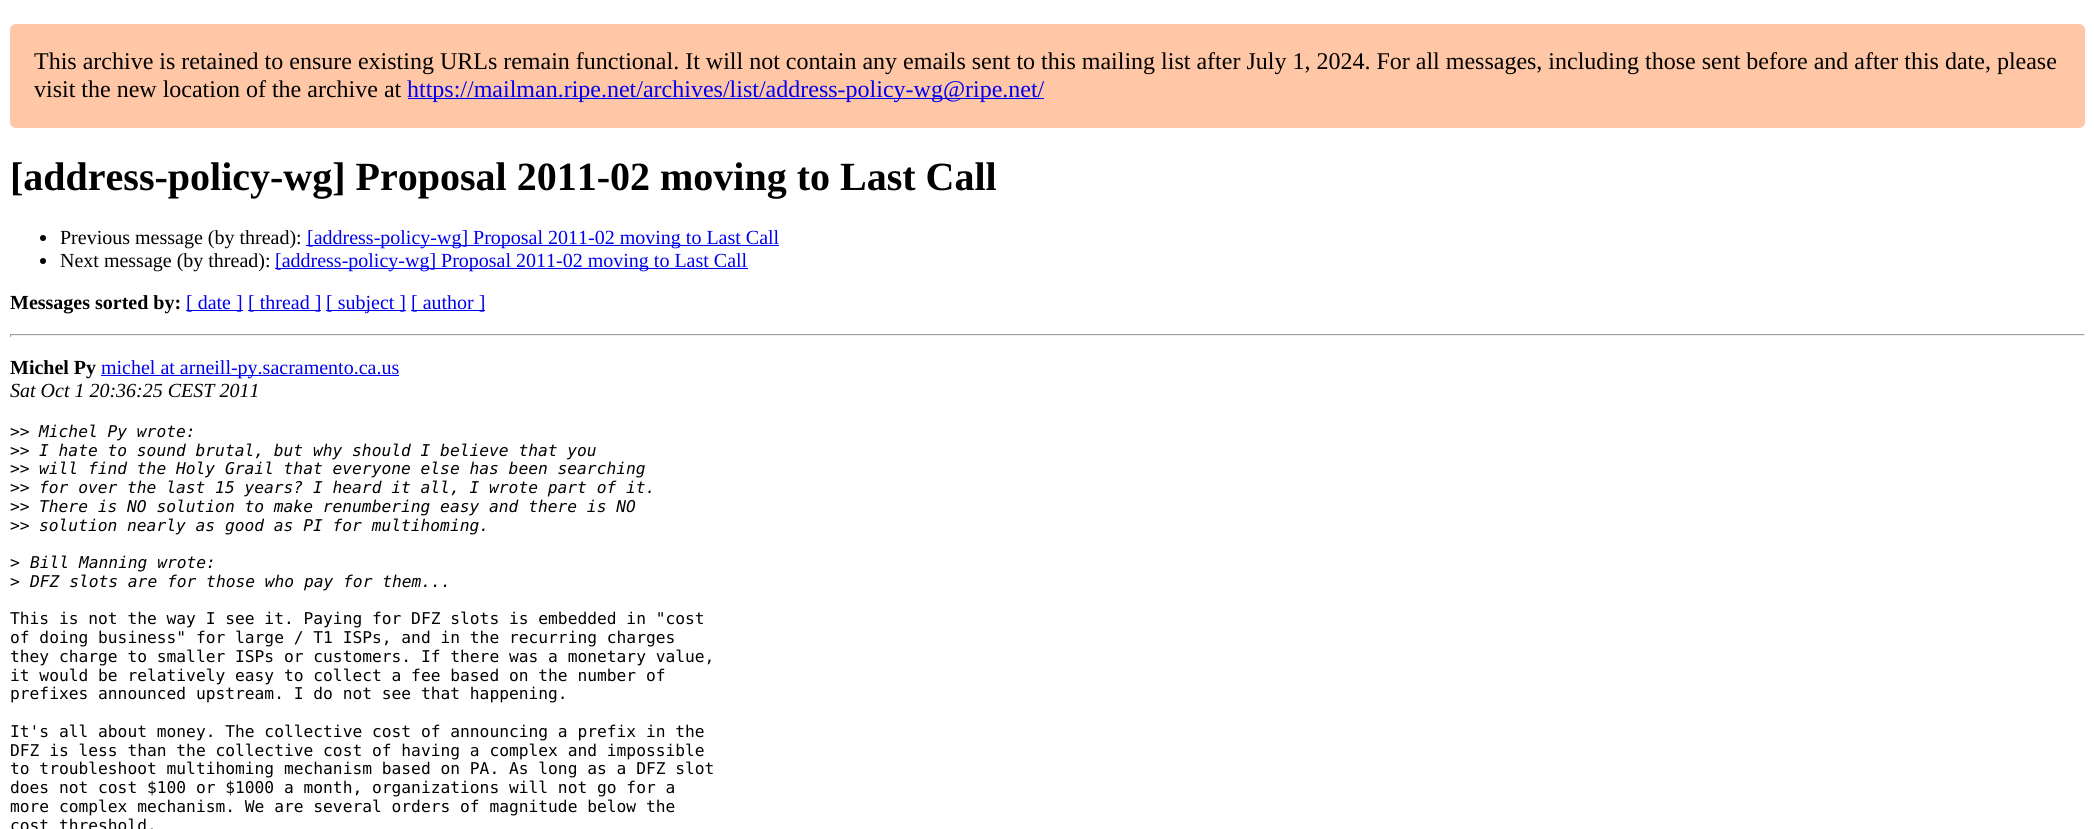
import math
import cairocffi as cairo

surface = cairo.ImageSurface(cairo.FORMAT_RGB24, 2094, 829)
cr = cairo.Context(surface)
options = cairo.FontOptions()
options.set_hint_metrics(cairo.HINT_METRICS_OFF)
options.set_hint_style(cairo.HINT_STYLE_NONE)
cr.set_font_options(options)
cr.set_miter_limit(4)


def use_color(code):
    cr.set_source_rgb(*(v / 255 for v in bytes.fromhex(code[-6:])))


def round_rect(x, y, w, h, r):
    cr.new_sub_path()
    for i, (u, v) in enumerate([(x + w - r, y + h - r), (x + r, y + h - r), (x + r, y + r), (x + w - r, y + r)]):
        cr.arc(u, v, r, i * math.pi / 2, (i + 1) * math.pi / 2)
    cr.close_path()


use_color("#ffffff")
cr.paint()
use_color("#ffc7a6")
round_rect(10, 24, 2075, 104, 6)
cr.fill()
cr.select_font_face("Liberation Serif")
cr.set_font_size(24)
use_color("#000000")
cr.move_to(34, 69)
cr.show_text("This archive is retained to ensure existing URLs remain functional. It will not contain any emails sent to this mailing list after July 1, 2024. For all messages, including those sent before and after this date, please")
cr.move_to(34, 97)
cr.show_text("visit the new location of the archive at")
use_color("#0000ee")
cr.rectangle(408, 98, 636, 1)
cr.fill()
cr.move_to(407, 97)
cr.show_text("https://mailman.ripe.net/archives/list/address-policy-wg@ripe.net/")
cr.select_font_face("Liberation Serif", cairo.FONT_SLANT_NORMAL, cairo.FONT_WEIGHT_BOLD)
cr.set_font_size(40)
use_color("#000000")
cr.move_to(10, 190)
cr.show_text("[address-policy-wg] Proposal 2011-02 moving to Last Call")
cr.new_path()
cr.arc(43, 238, 3, 0, 2 * math.pi)
cr.fill()
cr.select_font_face("Liberation Serif")
cr.set_font_size(20)
cr.move_to(60, 244)
cr.show_text("Previous message (by thread):")
use_color("#0000ee")
cr.rectangle(306, 245, 473, 1)
cr.fill()
cr.move_to(307, 244)
cr.show_text("[address-policy-wg] Proposal 2011-02 moving to Last Call")
use_color("#000000")
cr.new_path()
cr.arc(43, 261, 3, 0, 2 * math.pi)
cr.fill()
cr.move_to(60, 267)
cr.show_text("Next message (by thread):")
use_color("#0000ee")
cr.rectangle(275, 268, 473, 1)
cr.fill()
cr.move_to(275, 267)
cr.show_text("[address-policy-wg] Proposal 2011-02 moving to Last Call")
cr.select_font_face("Liberation Serif", cairo.FONT_SLANT_NORMAL, cairo.FONT_WEIGHT_BOLD)
use_color("#000000")
cr.move_to(10, 309)
cr.show_text("Messages sorted by:")
use_color("#0000ee")
cr.rectangle(186, 310, 57, 1)
cr.fill()
cr.select_font_face("Liberation Serif")
cr.move_to(186, 309)
cr.show_text("[ date ]")
cr.rectangle(248, 310, 73, 1)
cr.fill()
cr.move_to(248, 309)
cr.show_text("[ thread ]")
cr.rectangle(326, 310, 80, 1)
cr.fill()
cr.move_to(326, 309)
cr.show_text("[ subject ]")
cr.rectangle(411, 310, 74, 1)
cr.fill()
cr.move_to(411, 309)
cr.show_text("[ author ]")
use_color("#9f9f9f")
cr.rectangle(10, 334, 2075, 1)
cr.fill()
use_color("#eeeeee")
cr.rectangle(2084, 334, 1, 3)
cr.fill()
cr.rectangle(10, 335, 2075, 1)
cr.fill()
use_color("#9f9f9f")
cr.rectangle(10, 334, 1, 3)
cr.fill()
cr.select_font_face("Liberation Serif", cairo.FONT_SLANT_NORMAL, cairo.FONT_WEIGHT_BOLD)
use_color("#000000")
cr.move_to(10, 374)
cr.show_text("Michel Py")
use_color("#0000ee")
cr.rectangle(101, 375, 298, 1)
cr.fill()
cr.select_font_face("Liberation Serif")
cr.move_to(101, 374)
cr.show_text("michel at arneill-py.sacramento.ca.us")
cr.select_font_face("Liberation Serif", cairo.FONT_SLANT_ITALIC)
use_color("#000000")
cr.move_to(10, 397)
cr.show_text("Sat Oct 1 20:36:25 CEST 2011")
cr.select_font_face("DejaVu Sans Mono")
cr.set_font_size(16.25)
cr.move_to(10, 437)
cr.show_text(">>")
cr.select_font_face("DejaVu Sans Mono", cairo.FONT_SLANT_ITALIC)
cr.move_to(39, 437)
cr.show_text("Michel Py wrote:")
cr.select_font_face("DejaVu Sans Mono")
cr.move_to(10, 456)
cr.show_text(">>")
cr.select_font_face("DejaVu Sans Mono", cairo.FONT_SLANT_ITALIC)
cr.move_to(39, 456)
cr.show_text("I hate to sound brutal, but why should I believe that you")
cr.select_font_face("DejaVu Sans Mono")
cr.move_to(10, 474)
cr.show_text(">>")
cr.select_font_face("DejaVu Sans Mono", cairo.FONT_SLANT_ITALIC)
cr.move_to(39, 474)
cr.show_text("will find the Holy Grail that everyone else has been searching")
cr.select_font_face("DejaVu Sans Mono")
cr.move_to(10, 493)
cr.show_text(">>")
cr.select_font_face("DejaVu Sans Mono", cairo.FONT_SLANT_ITALIC)
cr.move_to(39, 493)
cr.show_text("for over the last 15 years? I heard it all, I wrote part of it.")
cr.select_font_face("DejaVu Sans Mono")
cr.move_to(10, 512)
cr.show_text(">>")
cr.select_font_face("DejaVu Sans Mono", cairo.FONT_SLANT_ITALIC)
cr.move_to(39, 512)
cr.show_text("There is NO solution to make renumbering easy and there is NO")
cr.select_font_face("DejaVu Sans Mono")
cr.move_to(10, 531)
cr.show_text(">>")
cr.select_font_face("DejaVu Sans Mono", cairo.FONT_SLANT_ITALIC)
cr.move_to(39, 531)
cr.show_text("solution nearly as good as PI for multihoming.")
cr.select_font_face("DejaVu Sans Mono")
cr.move_to(10, 568)
cr.show_text(">")
cr.select_font_face("DejaVu Sans Mono", cairo.FONT_SLANT_ITALIC)
cr.move_to(30, 568)
cr.show_text("Bill Manning wrote:")
cr.select_font_face("DejaVu Sans Mono")
cr.move_to(10, 587)
cr.show_text(">")
cr.select_font_face("DejaVu Sans Mono", cairo.FONT_SLANT_ITALIC)
cr.move_to(30, 587)
cr.show_text("DFZ slots are for those who pay for them...")
cr.select_font_face("DejaVu Sans Mono")
cr.move_to(10, 624)
cr.show_text("This is not the way I see it. Paying for DFZ slots is embedded in \"cost")
cr.move_to(10, 643)
cr.show_text("of doing business\" for large / T1 ISPs, and in the recurring charges")
cr.move_to(10, 662)
cr.show_text("they charge to smaller ISPs or customers. If there was a monetary value,")
cr.move_to(10, 681)
cr.show_text("it would be relatively easy to collect a fee based on the number of")
cr.move_to(10, 699)
cr.show_text("prefixes announced upstream. I do not see that happening.")
cr.move_to(10, 737)
cr.show_text("It's all about money. The collective cost of announcing a prefix in the")
cr.move_to(10, 756)
cr.show_text("DFZ is less than the collective cost of having a complex and impossible")
cr.move_to(10, 774)
cr.show_text("to troubleshoot multihoming mechanism based on PA. As long as a DFZ slot")
cr.move_to(10, 793)
cr.show_text("does not cost $100 or $1000 a month, organizations will not go for a")
cr.move_to(10, 812)
cr.show_text("more complex mechanism. We are several orders of magnitude below the")
cr.move_to(10, 831)
cr.show_text("cost threshold.")
surface.write_to_png("result.png")
